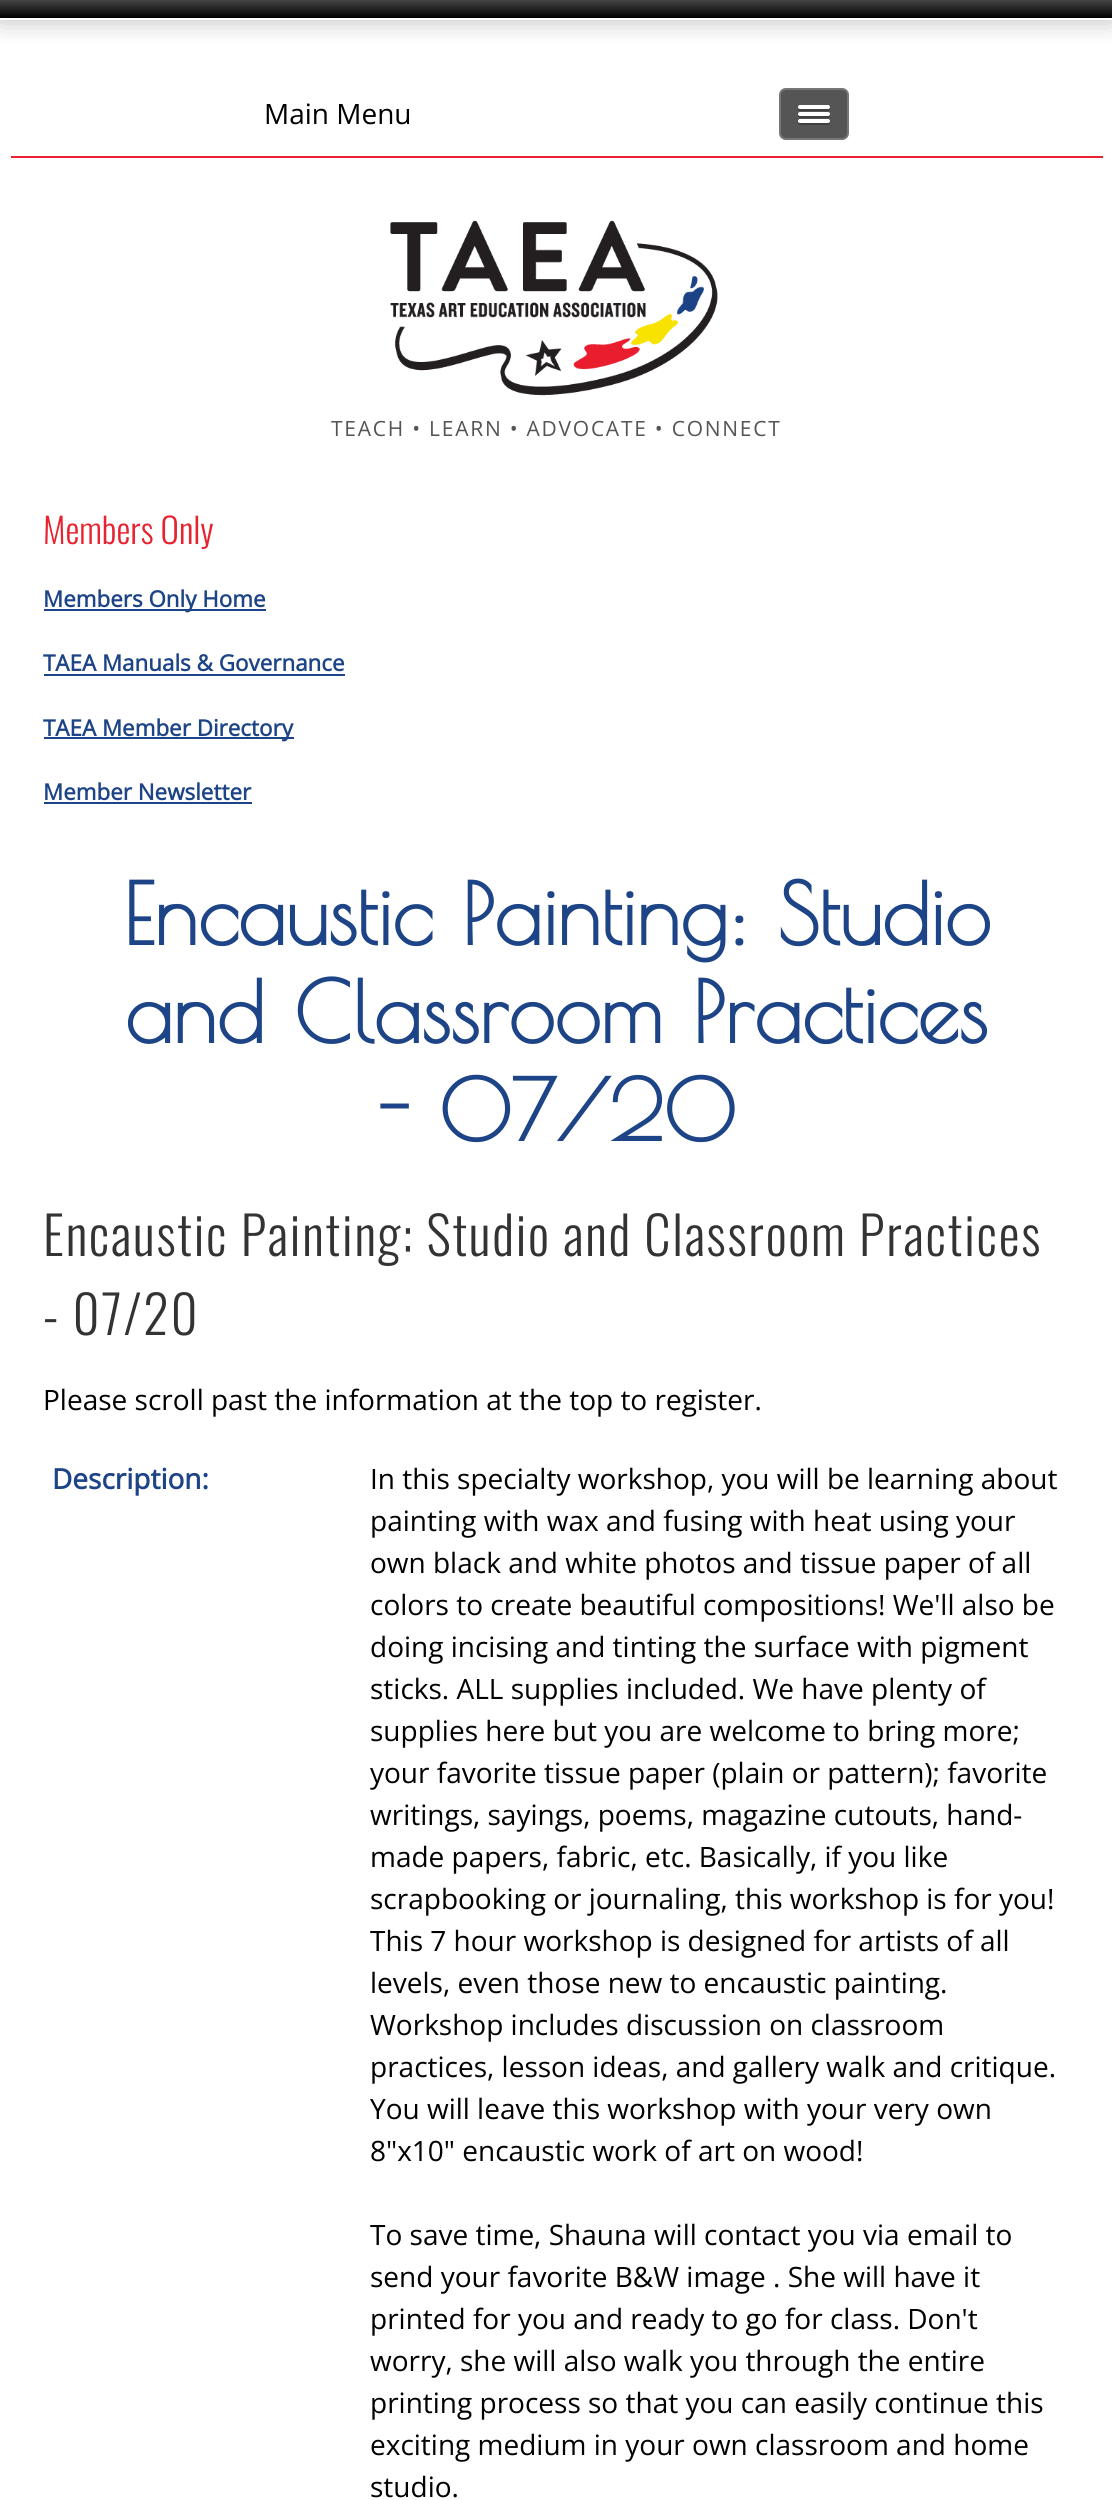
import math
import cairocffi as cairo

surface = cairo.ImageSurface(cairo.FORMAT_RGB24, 1112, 2500)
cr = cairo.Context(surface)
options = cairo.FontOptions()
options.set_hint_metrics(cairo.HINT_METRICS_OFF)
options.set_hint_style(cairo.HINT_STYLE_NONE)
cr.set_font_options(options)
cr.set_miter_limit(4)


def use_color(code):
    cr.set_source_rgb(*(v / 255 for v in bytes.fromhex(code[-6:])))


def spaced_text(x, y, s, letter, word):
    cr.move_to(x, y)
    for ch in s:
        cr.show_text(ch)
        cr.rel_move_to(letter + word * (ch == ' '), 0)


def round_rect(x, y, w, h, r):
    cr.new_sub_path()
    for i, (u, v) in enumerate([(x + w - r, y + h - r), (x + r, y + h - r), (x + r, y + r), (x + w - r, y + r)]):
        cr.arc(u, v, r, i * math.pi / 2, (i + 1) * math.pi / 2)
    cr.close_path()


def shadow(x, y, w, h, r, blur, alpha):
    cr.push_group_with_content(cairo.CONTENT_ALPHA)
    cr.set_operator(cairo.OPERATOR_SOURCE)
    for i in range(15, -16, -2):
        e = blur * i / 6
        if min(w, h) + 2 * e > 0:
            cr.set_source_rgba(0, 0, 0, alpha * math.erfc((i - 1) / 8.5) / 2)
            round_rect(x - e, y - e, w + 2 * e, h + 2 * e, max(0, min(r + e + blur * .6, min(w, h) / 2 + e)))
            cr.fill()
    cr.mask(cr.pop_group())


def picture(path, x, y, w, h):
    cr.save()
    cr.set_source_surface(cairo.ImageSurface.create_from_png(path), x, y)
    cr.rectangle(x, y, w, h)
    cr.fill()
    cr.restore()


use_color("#ffffff")
cr.paint()
use_color("#000000")
shadow(0, 0, 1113, 19, 0, 13, 0.3)
gradient = cairo.LinearGradient(557, 0, 557, 18)
gradient.add_color_stop_rgba(0, 0.267, 0.267, 0.267, 1)
gradient.add_color_stop_rgba(1, 0, 0, 0, 1)
cr.set_source(gradient)
cr.rectangle(0, 0, 1112, 18)
cr.fill()
use_color("#ffffff")
cr.rectangle(0, 18, 1112, 2)
cr.fill()
use_color("#e8222f")
cr.rectangle(11, 156, 1092, 2)
cr.fill()
cr.select_font_face("Open Sans")
cr.set_font_size(28)
use_color("#000000")
cr.move_to(264, 124)
cr.show_text("Main Menu")
use_color("#555555")
round_rect(779, 88, 70, 52, 7)
cr.fill()
round_rect(780, 89, 68, 50, 6)
cr.set_source_rgba(1, 1, 1, 0.2)
cr.stroke()
use_color("#404040")
cr.new_path()
cr.move_to(798.5, 108)
cr.line_to(798, 109.5)
cr.curve_to(798.5, 112, 803.5, 111, 804.5, 111)
cr.line_to(823.5, 111)
cr.curve_to(825, 111, 830, 112, 830, 109)
cr.line_to(829.5, 107.5)
cr.curve_to(829, 108, 828.5, 108.5, 828, 108.5)
cr.line_to(799.5, 108.5)
cr.close_path()
cr.fill()
use_color("#ffffff")
round_rect(798, 105, 32, 4, 2)
cr.fill()
use_color("#404040")
cr.new_path()
cr.move_to(798.5, 115)
cr.line_to(798, 116.5)
cr.curve_to(798.5, 119, 803.5, 118, 804.5, 118)
cr.line_to(823.5, 118)
cr.curve_to(825, 118, 830, 119, 830, 116)
cr.line_to(829.5, 114.5)
cr.curve_to(829, 115, 828.5, 115.5, 828, 115.5)
cr.line_to(799.5, 115.5)
cr.close_path()
cr.fill()
use_color("#ffffff")
round_rect(798, 112, 32, 4, 2)
cr.fill()
use_color("#404040")
cr.new_path()
cr.move_to(798.5, 122)
cr.line_to(798, 123.5)
cr.curve_to(798.5, 126, 803.5, 125, 804.5, 125)
cr.line_to(823.5, 125)
cr.curve_to(825, 125, 830, 126, 830, 123)
cr.line_to(829.5, 121.5)
cr.curve_to(829, 122, 828.5, 122.5, 828, 122.5)
cr.line_to(799.5, 122.5)
cr.close_path()
cr.fill()
use_color("#ffffff")
round_rect(798, 119, 32, 4, 2)
cr.fill()
picture("img1.png", 390, 220, 328, 176)
cr.set_font_size(21)
use_color("#555555")
spaced_text(331, 436, "TEACH • LEARN • ADVOCATE • CONNECT", 1.75, 0)
cr.select_font_face("Oswald Light")
cr.set_font_size(35)
use_color("#e8222f")
cr.move_to(43, 544)
cr.show_text("Members Only")
use_color("#1d4486")
cr.rectangle(44, 609, 222, 2)
cr.fill()
cr.select_font_face("Open Sans", cairo.FONT_SLANT_NORMAL, cairo.FONT_WEIGHT_BOLD)
cr.set_font_size(22.4)
cr.move_to(43, 607)
cr.show_text("Members Only Home")
cr.move_to(43, 671)
cr.show_text("TAEA Manuals & Governance")
cr.rectangle(44, 674, 301, 2)
cr.fill()
cr.rectangle(44, 737, 250, 2)
cr.fill()
cr.move_to(43, 736)
cr.show_text("TAEA Member Directory")
cr.move_to(43, 800)
cr.show_text("Member Newsletter")
cr.rectangle(44, 802, 208, 2)
cr.fill()
cr.select_font_face("Poiret One", cairo.FONT_SLANT_NORMAL, cairo.FONT_WEIGHT_BOLD)
cr.set_font_size(84)
cr.move_to(123, 945)
cr.show_text("Encaustic Painting: Studio")
cr.move_to(125, 1043)
cr.show_text("and Classroom Practices")
cr.move_to(377, 1141)
cr.show_text("- 07/20")
cr.select_font_face("Oswald Light")
cr.set_font_size(52.5)
use_color("#333333")
spaced_text(43, 1256, "Encaustic Painting: Studio and Classroom Practices", 1.75, 0)
spaced_text(43, 1335, "- 07/20", 1.75, 0)
cr.select_font_face("Open Sans")
cr.set_font_size(28)
use_color("#000000")
cr.move_to(43, 1410)
cr.show_text("Please scroll past the information at the top to register.")
cr.select_font_face("Open Sans", cairo.FONT_SLANT_NORMAL, cairo.FONT_WEIGHT_BOLD)
use_color("#1d4486")
cr.move_to(52, 1489)
cr.show_text("Description:")
cr.select_font_face("Open Sans")
use_color("#000000")
cr.move_to(370, 1489)
cr.show_text("In this specialty workshop, you will be learning about")
cr.move_to(370, 1531)
cr.show_text("painting with wax and fusing with heat using your")
cr.move_to(370, 1573)
cr.show_text("own black and white photos and tissue paper of all")
cr.move_to(370, 1615)
cr.show_text("colors to create beautiful compositions! We'll also be")
cr.move_to(370, 1657)
cr.show_text("doing incising and tinting the surface with pigment")
cr.move_to(370, 1699)
cr.show_text("sticks. ALL supplies included. We have plenty of")
cr.move_to(370, 1741)
cr.show_text("supplies here but you are welcome to bring more;")
cr.move_to(370, 1783)
cr.show_text("your favorite tissue paper (plain or pattern); favorite")
cr.move_to(370, 1825)
cr.show_text("writings, sayings, poems, magazine cutouts, hand-")
cr.move_to(370, 1867)
cr.show_text("made papers, fabric, etc. Basically, if you like")
cr.move_to(370, 1909)
cr.show_text("scrapbooking or journaling, this workshop is for you!")
cr.move_to(370, 1951)
cr.show_text("This 7 hour workshop is designed for artists of all")
cr.move_to(370, 1993)
cr.show_text("levels, even those new to encaustic painting.")
cr.move_to(370, 2035)
cr.show_text("Workshop includes discussion on classroom")
cr.move_to(370, 2077)
cr.show_text("practices, lesson ideas, and gallery walk and critique.")
cr.move_to(370, 2119)
cr.show_text("You will leave this workshop with your very own")
cr.move_to(370, 2161)
cr.show_text("8\"x10\" encaustic work of art on wood!")
cr.move_to(370, 2245)
cr.show_text("To save time, Shauna will contact you via email to")
cr.move_to(370, 2287)
cr.show_text("send your favorite B&W image . She will have it")
cr.move_to(370, 2329)
cr.show_text("printed for you and ready to go for class. Don't")
cr.move_to(370, 2371)
cr.show_text("worry, she will also walk you through the entire")
cr.move_to(370, 2413)
cr.show_text("printing process so that you can easily continue this")
cr.move_to(370, 2455)
cr.show_text("exciting medium in your own classroom and home")
cr.move_to(370, 2497)
cr.show_text("studio.")
surface.write_to_png("result.png")
